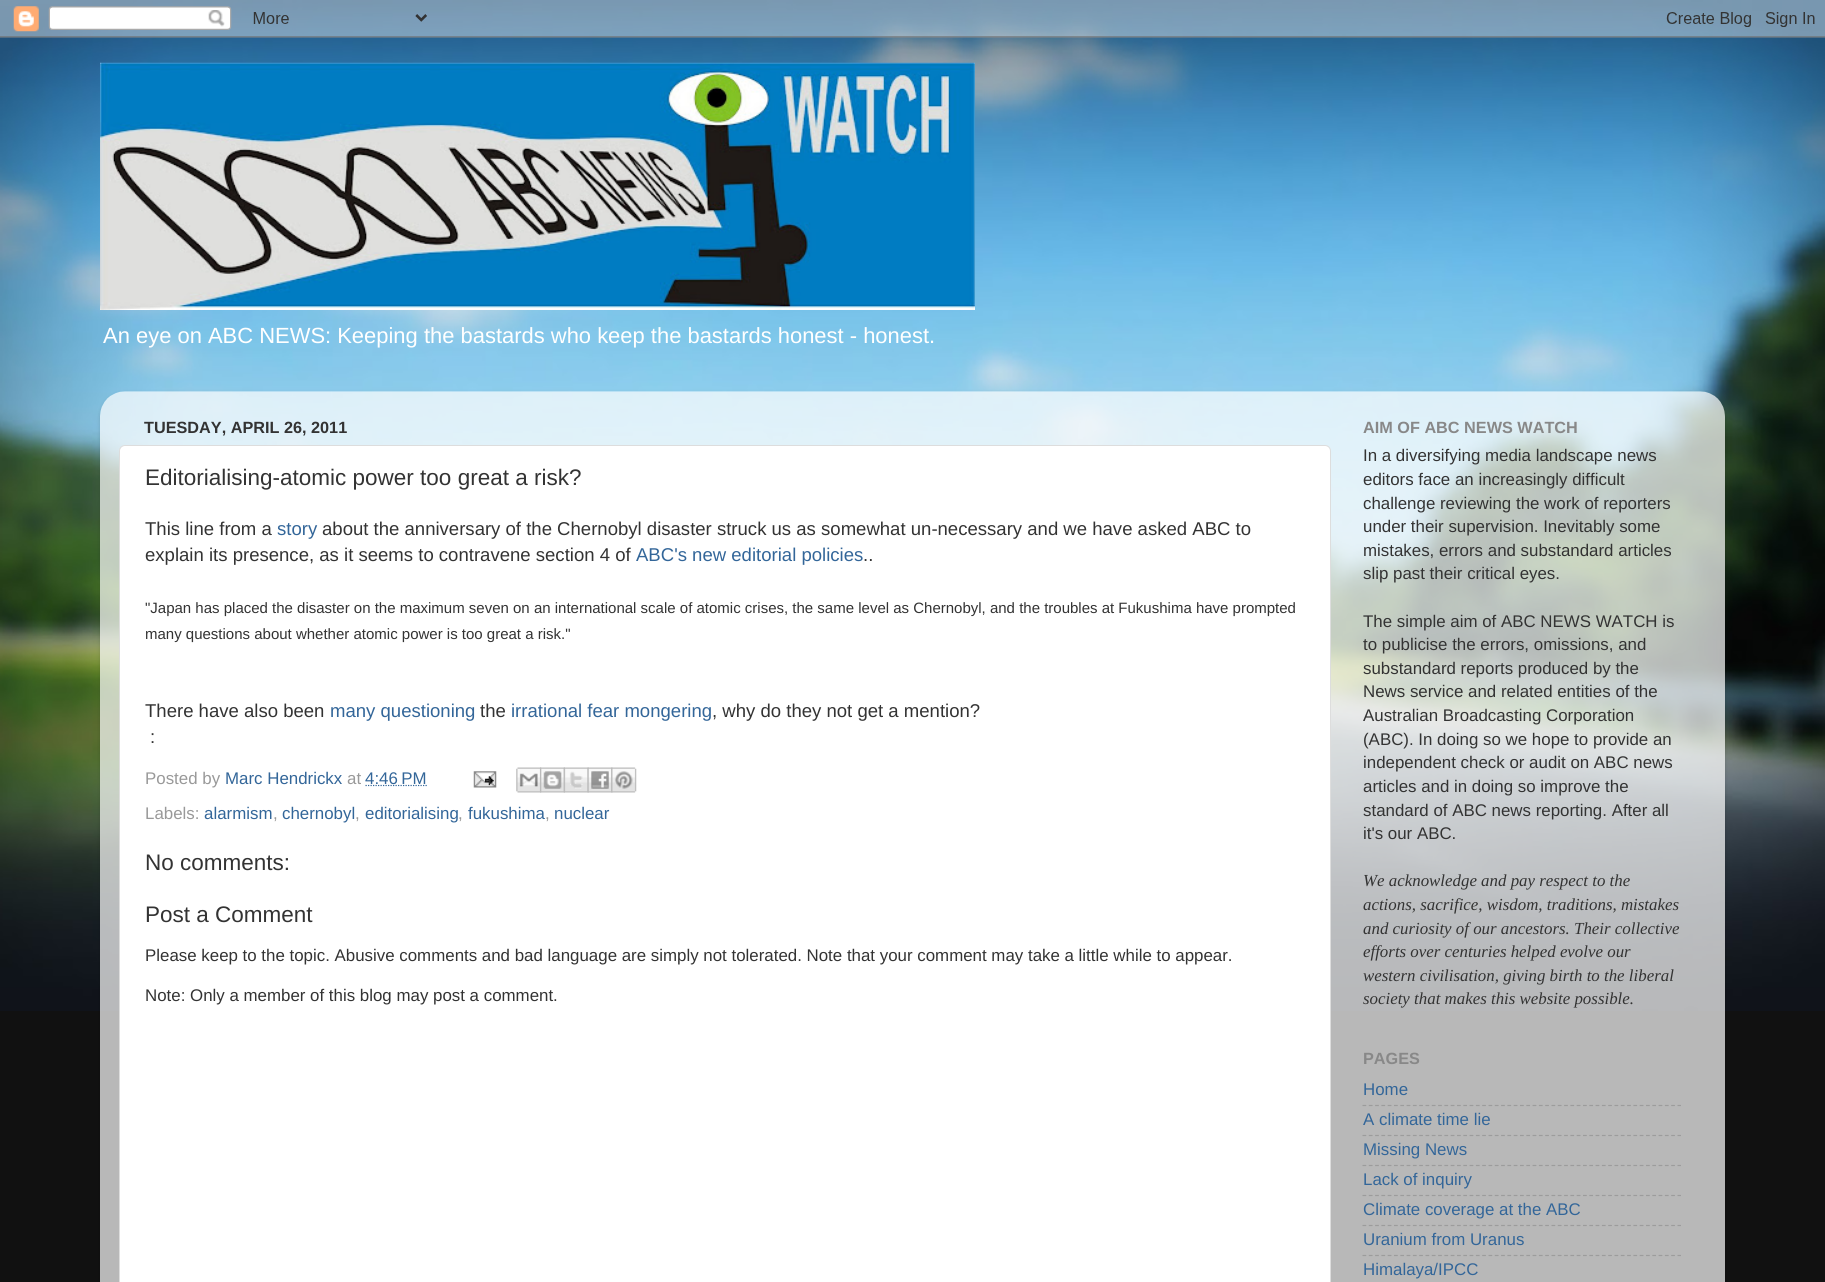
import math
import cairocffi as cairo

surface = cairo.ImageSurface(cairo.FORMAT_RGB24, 1825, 1282)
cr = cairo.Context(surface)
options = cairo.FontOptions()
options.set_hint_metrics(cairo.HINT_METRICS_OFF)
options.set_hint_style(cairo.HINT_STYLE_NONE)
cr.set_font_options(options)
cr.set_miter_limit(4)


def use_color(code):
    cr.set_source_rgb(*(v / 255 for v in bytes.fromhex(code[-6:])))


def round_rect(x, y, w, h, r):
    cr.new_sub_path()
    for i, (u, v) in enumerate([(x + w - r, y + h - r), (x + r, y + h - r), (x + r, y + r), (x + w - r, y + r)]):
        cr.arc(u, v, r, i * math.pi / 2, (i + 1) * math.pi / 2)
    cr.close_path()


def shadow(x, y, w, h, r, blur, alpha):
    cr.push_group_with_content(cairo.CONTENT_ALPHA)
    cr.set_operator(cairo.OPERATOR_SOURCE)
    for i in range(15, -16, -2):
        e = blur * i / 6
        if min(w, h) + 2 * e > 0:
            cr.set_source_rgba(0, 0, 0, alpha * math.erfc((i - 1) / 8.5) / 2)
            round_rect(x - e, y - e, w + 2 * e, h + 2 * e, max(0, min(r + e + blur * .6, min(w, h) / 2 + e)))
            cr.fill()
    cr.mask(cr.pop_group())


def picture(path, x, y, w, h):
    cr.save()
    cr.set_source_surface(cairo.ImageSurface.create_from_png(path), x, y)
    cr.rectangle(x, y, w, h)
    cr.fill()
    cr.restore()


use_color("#111111")
cr.paint()
picture("img1.png", 0, 0, 1825, 1011)
picture("img2.png", 0, 0, 1825, 38)
picture("img3.png", 100, 62, 875, 248)
cr.select_font_face("Liberation Sans")
cr.set_font_size(21.95)
use_color("#ffffff")
cr.move_to(103, 343)
cr.show_text("An eye on ABC NEWS: Keeping the bastards who keep the bastards honest - honest.")
cr.save()
cr.set_fill_rule(cairo.FILL_RULE_EVEN_ODD)
cr.new_path()
cr.move_to(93, 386)
cr.line_to(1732, 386)
cr.line_to(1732, 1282)
cr.line_to(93, 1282)
cr.close_path()
cr.move_to(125, 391)
cr.line_to(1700, 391)
cr.curve_to(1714, 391, 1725, 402, 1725, 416)
cr.line_to(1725, 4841)
cr.line_to(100, 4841)
cr.line_to(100, 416)
cr.curve_to(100, 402, 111, 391, 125, 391)
cr.close_path()
cr.clip()
use_color("#000000")
shadow(100, 393, 1625, 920, 25, 2, 0.15)
cr.restore()
picture("img4.png", 100, 391, 1625, 891)
cr.select_font_face("Liberation Sans", cairo.FONT_SLANT_NORMAL, cairo.FONT_WEIGHT_BOLD)
cr.set_font_size(16.25)
use_color("#333333")
cr.move_to(144, 433)
cr.show_text("TUESDAY, APRIL 26, 2011")
use_color("#ffffff")
round_rect(119.5, 445.5, 1211, 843, 5.5)
cr.fill_preserve()
use_color("#dddddd")
cr.set_line_width(1)
cr.stroke()
cr.select_font_face("Liberation Sans")
cr.set_font_size(22.5)
use_color("#333333")
cr.move_to(145, 485)
cr.show_text("Editorialising-atomic power too great a risk?")
cr.set_font_size(18.55)
cr.move_to(145, 535)
cr.show_text("This line from a")
use_color("#336699")
cr.move_to(277, 535)
cr.show_text("story")
use_color("#333333")
cr.move_to(322, 535)
cr.show_text("about the anniversary of the Chernobyl disaster struck us as somewhat un-necessary and we have asked ABC to")
cr.move_to(145, 561)
cr.show_text("explain its presence, as it seems to contravene section 4 of")
use_color("#336699")
cr.move_to(636, 561)
cr.show_text("ABC's new editorial policies")
use_color("#333333")
cr.move_to(863, 561)
cr.show_text("..")
cr.set_font_size(15)
cr.move_to(145, 613)
cr.show_text("\"Japan has placed the disaster on the maximum seven on an international scale of atomic crises, the same level as Chernobyl, and the troubles at Fukushima have prompted")
cr.move_to(145, 639)
cr.show_text("many questions about whether atomic power is too great a risk.\"")
cr.set_font_size(18.55)
cr.move_to(145, 717)
cr.show_text("There have also been")
use_color("#336699")
cr.move_to(330, 717)
cr.show_text("many questioning")
use_color("#333333")
cr.move_to(480, 717)
cr.show_text("the")
use_color("#336699")
cr.move_to(511, 717)
cr.show_text("irrational fear mongering")
use_color("#333333")
cr.move_to(712, 717)
cr.show_text(", why do they not get a mention?")
cr.move_to(150, 743)
cr.show_text(":")
cr.set_font_size(16.88)
use_color("#999999")
cr.move_to(145, 784)
cr.show_text("Posted by")
use_color("#336699")
cr.move_to(225, 784)
cr.show_text("Marc Hendrickx")
use_color("#999999")
cr.move_to(347, 784)
cr.show_text("at")
cr.new_path()
cr.move_to(365.5, 785.5)
cr.line_to(427, 785.5)
use_color("#336699")
cr.set_line_width(1.2)
cr.set_dash([1.25, 1.25])
cr.stroke()
cr.move_to(365, 784)
cr.show_text("4:46 PM")
picture("img5.png", 473, 771, 24, 17)
picture("img6.png", 516, 767, 26, 26)
picture("img7.png", 540, 767, 25, 26)
picture("img8.png", 563, 767, 26, 26)
picture("img9.png", 587, 767, 26, 26)
picture("img10.png", 611, 767, 26, 26)
use_color("#999999")
cr.move_to(145, 819)
cr.show_text("Labels:")
use_color("#336699")
cr.move_to(204, 819)
cr.show_text("alarmism")
use_color("#999999")
cr.move_to(273, 819)
cr.show_text(",")
use_color("#336699")
cr.move_to(282, 819)
cr.show_text("chernobyl")
use_color("#999999")
cr.move_to(355, 819)
cr.show_text(",")
use_color("#336699")
cr.move_to(365, 819)
cr.show_text("editorialising")
use_color("#999999")
cr.move_to(458, 819)
cr.show_text(",")
use_color("#336699")
cr.move_to(468, 819)
cr.show_text("fukushima")
use_color("#999999")
cr.move_to(545, 819)
cr.show_text(",")
use_color("#336699")
cr.move_to(554, 819)
cr.show_text("nuclear")
cr.set_font_size(22.5)
use_color("#333333")
cr.move_to(145, 870)
cr.show_text("No comments:")
cr.move_to(145, 922)
cr.show_text("Post a Comment")
cr.set_font_size(16.88)
cr.move_to(145, 961)
cr.show_text("Please keep to the topic. Abusive comments and bad language are simply not tolerated. Note that your comment may take a little while to appear.")
cr.move_to(145, 1001)
cr.show_text("Note: Only a member of this blog may post a comment.")
cr.select_font_face("Liberation Sans", cairo.FONT_SLANT_NORMAL, cairo.FONT_WEIGHT_BOLD)
cr.set_font_size(16.25)
use_color("#888888")
cr.move_to(1363, 433)
cr.show_text("AIM OF ABC NEWS WATCH")
cr.select_font_face("Liberation Sans")
cr.set_font_size(16.88)
use_color("#333333")
cr.move_to(1363, 461)
cr.show_text("In a diversifying media landscape news")
cr.move_to(1363, 485)
cr.show_text("editors face an increasingly difficult")
cr.move_to(1363, 509)
cr.show_text("challenge reviewing the work of reporters")
cr.move_to(1363, 532)
cr.show_text("under their supervision. Inevitably some")
cr.move_to(1363, 556)
cr.show_text("mistakes, errors and substandard articles")
cr.move_to(1363, 579)
cr.show_text("slip past their critical eyes.")
cr.move_to(1363, 627)
cr.show_text("The simple aim of ABC NEWS WATCH is")
cr.move_to(1363, 650)
cr.show_text("to publicise the errors, omissions, and")
cr.move_to(1363, 674)
cr.show_text("substandard reports produced by the")
cr.move_to(1363, 697)
cr.show_text("News service and related entities of the")
cr.move_to(1363, 721)
cr.show_text("Australian Broadcasting Corporation")
cr.move_to(1363, 745)
cr.show_text("(ABC). In doing so we hope to provide an")
cr.move_to(1363, 768)
cr.show_text("independent check or audit on ABC news")
cr.move_to(1363, 792)
cr.show_text("articles and in doing so improve the")
cr.move_to(1363, 816)
cr.show_text("standard of ABC news reporting. After all")
cr.move_to(1363, 839)
cr.show_text("it's our ABC.")
cr.select_font_face("Liberation Serif", cairo.FONT_SLANT_ITALIC)
cr.move_to(1363, 886)
cr.show_text("We acknowledge and pay respect to the")
cr.move_to(1363, 910)
cr.show_text("actions, sacrifice, wisdom, traditions, mistakes")
cr.move_to(1363, 934)
cr.show_text("and curiosity of our ancestors. Their collective")
cr.move_to(1363, 957)
cr.show_text("efforts over centuries helped evolve our")
cr.move_to(1363, 981)
cr.show_text("western civilisation, giving birth to the liberal")
cr.move_to(1363, 1004)
cr.show_text("society that makes this website possible.")
cr.select_font_face("Liberation Sans", cairo.FONT_SLANT_NORMAL, cairo.FONT_WEIGHT_BOLD)
cr.set_font_size(16.25)
use_color("#888888")
cr.move_to(1363, 1064)
cr.show_text("PAGES")
cr.select_font_face("Liberation Sans")
cr.set_font_size(16.88)
use_color("#336699")
cr.move_to(1363, 1095)
cr.show_text("Home")
cr.new_path()
cr.move_to(1362.5, 1105.5)
cr.line_to(1681, 1105.5)
use_color("#9c9c9c")
cr.set_dash([3.75, 2.55])
cr.stroke()
use_color("#336699")
cr.move_to(1363, 1125)
cr.show_text("A climate time lie")
cr.new_path()
cr.move_to(1362.5, 1135.5)
cr.line_to(1681, 1135.5)
use_color("#9c9c9c")
cr.stroke()
use_color("#336699")
cr.move_to(1363, 1155)
cr.show_text("Missing News")
cr.new_path()
cr.move_to(1362.5, 1165.5)
cr.line_to(1681, 1165.5)
use_color("#9c9c9c")
cr.stroke()
use_color("#336699")
cr.move_to(1363, 1185)
cr.show_text("Lack of inquiry")
cr.new_path()
cr.move_to(1362.5, 1195.5)
cr.line_to(1681, 1195.5)
use_color("#9c9c9c")
cr.stroke()
use_color("#336699")
cr.move_to(1363, 1215)
cr.show_text("Climate coverage at the ABC")
cr.new_path()
cr.move_to(1362.5, 1225.5)
cr.line_to(1681, 1225.5)
use_color("#9c9c9c")
cr.stroke()
use_color("#336699")
cr.move_to(1363, 1245)
cr.show_text("Uranium from Uranus")
cr.new_path()
cr.move_to(1362.5, 1255.5)
cr.line_to(1681, 1255.5)
use_color("#9c9c9c")
cr.stroke()
use_color("#336699")
cr.move_to(1363, 1275)
cr.show_text("Himalaya/IPCC")
surface.write_to_png("result.png")
